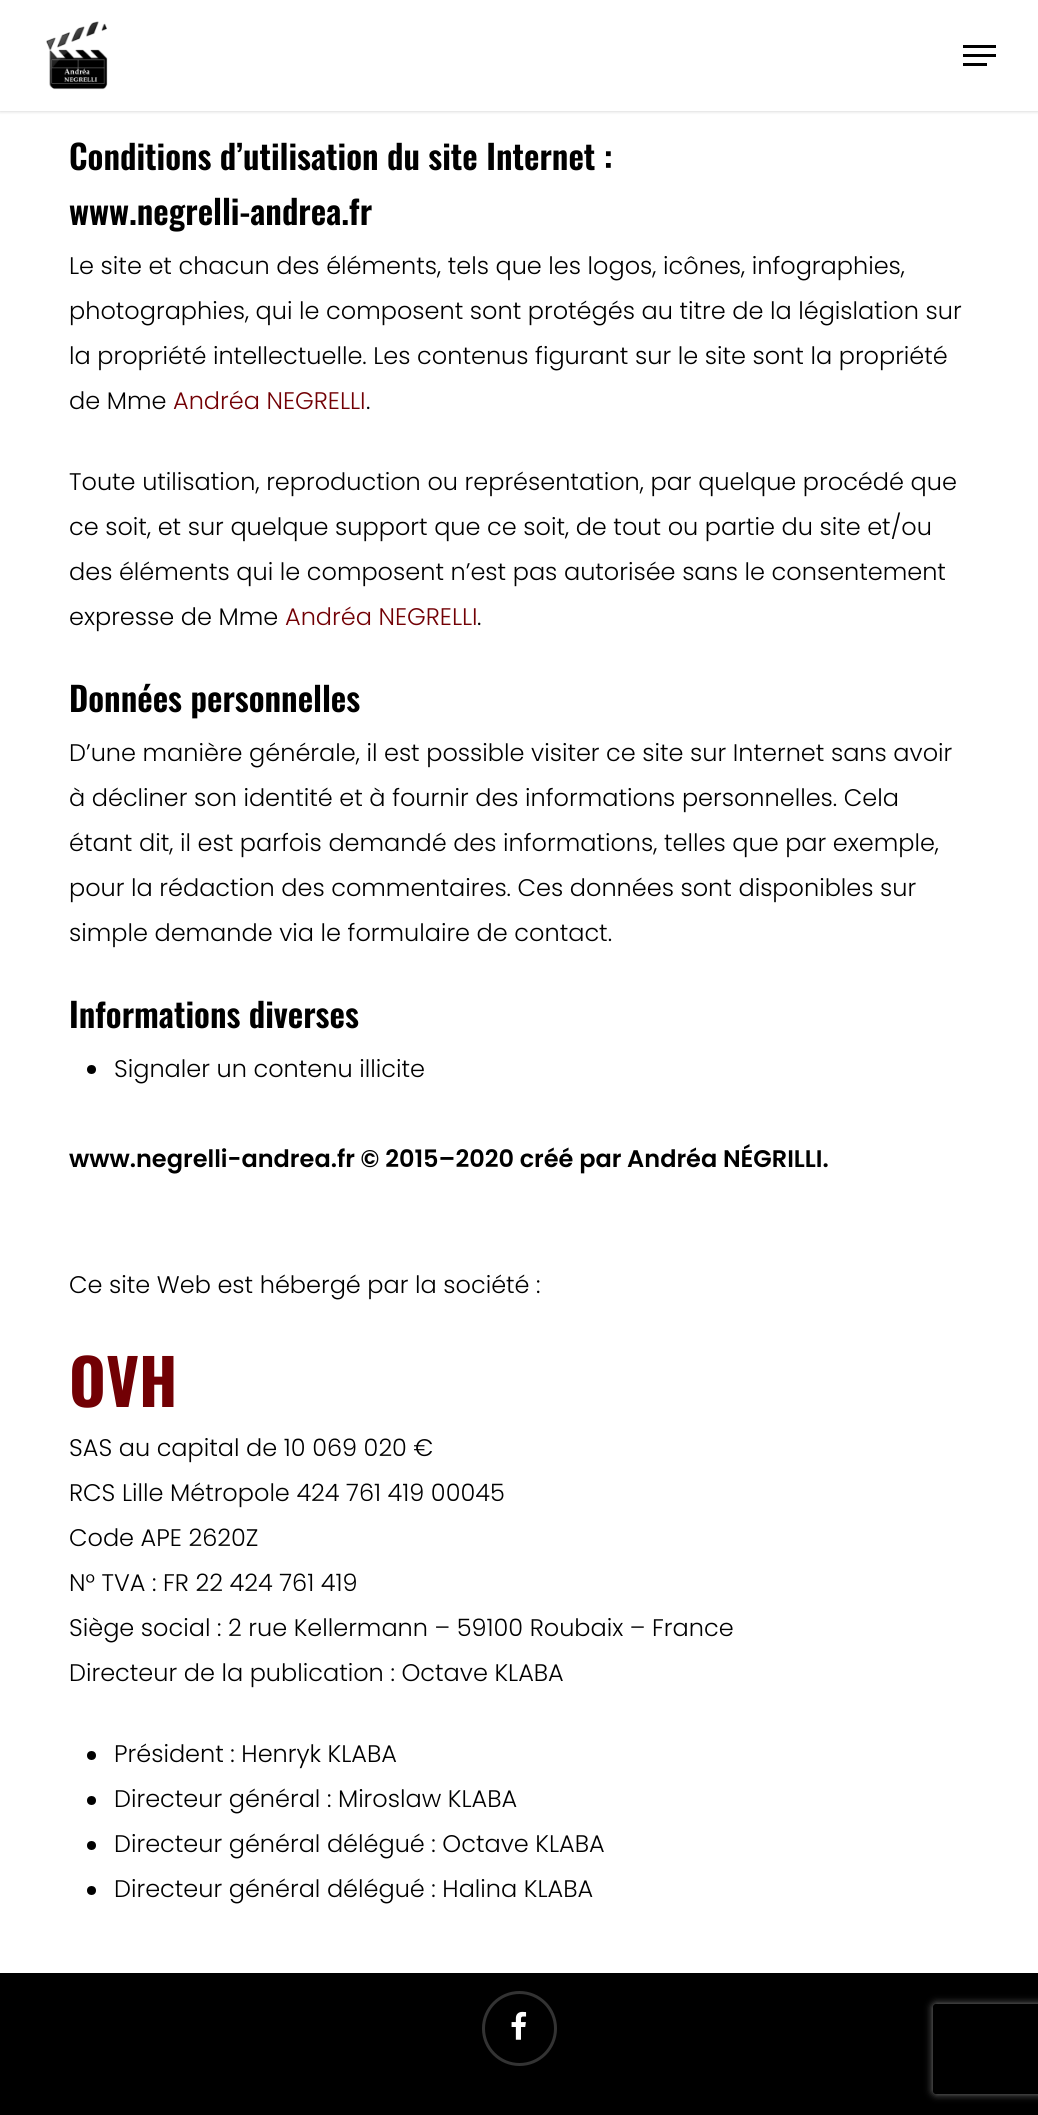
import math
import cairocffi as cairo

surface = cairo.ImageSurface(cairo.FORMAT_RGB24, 1038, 2115)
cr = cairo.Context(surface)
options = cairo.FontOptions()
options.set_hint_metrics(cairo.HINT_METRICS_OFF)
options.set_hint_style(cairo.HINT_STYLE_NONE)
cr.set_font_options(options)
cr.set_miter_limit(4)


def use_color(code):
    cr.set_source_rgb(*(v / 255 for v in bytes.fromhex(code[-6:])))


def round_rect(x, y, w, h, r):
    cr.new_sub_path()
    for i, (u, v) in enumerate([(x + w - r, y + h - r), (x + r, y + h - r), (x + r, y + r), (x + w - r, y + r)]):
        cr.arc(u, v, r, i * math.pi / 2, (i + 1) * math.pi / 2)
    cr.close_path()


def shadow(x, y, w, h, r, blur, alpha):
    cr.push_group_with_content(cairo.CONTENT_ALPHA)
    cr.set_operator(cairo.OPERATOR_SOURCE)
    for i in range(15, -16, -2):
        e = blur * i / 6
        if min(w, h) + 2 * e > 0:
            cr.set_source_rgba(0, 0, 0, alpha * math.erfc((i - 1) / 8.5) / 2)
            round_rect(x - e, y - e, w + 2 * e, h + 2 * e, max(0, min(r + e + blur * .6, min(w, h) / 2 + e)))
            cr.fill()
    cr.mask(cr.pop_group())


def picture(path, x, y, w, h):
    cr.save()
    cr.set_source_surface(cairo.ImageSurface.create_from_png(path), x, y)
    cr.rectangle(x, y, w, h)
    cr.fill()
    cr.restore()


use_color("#ffffff")
cr.paint()
use_color("#000000")
shadow(0, 0, 1038, 111, 0, 2, 0.22)
use_color("#ffffff")
cr.rectangle(0, 0, 1038, 111)
cr.fill()
picture("img1.png", 46, 21, 62, 69)
use_color("#000000")
cr.rectangle(963, 45, 33, 3)
cr.fill()
cr.rectangle(963, 63, 24, 3)
cr.fill()
cr.rectangle(963, 54, 33, 3)
cr.fill()
cr.select_font_face("Oswald SemiBold")
cr.set_font_size(33.6)
cr.move_to(69, 170)
cr.show_text("Conditions d’utilisation du site Internet :")
cr.move_to(69, 225)
cr.show_text("www.negrelli-andrea.fr")
cr.select_font_face("Poppins Light")
cr.set_font_size(24)
cr.move_to(69, 274)
cr.show_text("Le site et chacun des éléments, tels que les logos, icônes, infographies,")
cr.move_to(69, 319)
cr.show_text("photographies, qui le composent sont protégés au titre de la législation sur")
cr.move_to(69, 364)
cr.show_text("la propriété intellectuelle. Les contenus figurant sur le site sont la propriété")
cr.move_to(69, 409)
cr.show_text("de Mme")
use_color("#720004")
cr.move_to(173, 409)
cr.show_text("Andréa NEGRELLI")
use_color("#000000")
cr.move_to(366, 409)
cr.show_text(".")
cr.move_to(69, 490)
cr.show_text("Toute utilisation, reproduction ou représentation, par quelque procédé que")
cr.move_to(69, 535)
cr.show_text("ce soit, et sur quelque support que ce soit, de tout ou partie du site et/ou")
cr.move_to(69, 580)
cr.show_text("des éléments qui le composent n’est pas autorisée sans le consentement")
cr.move_to(69, 625)
cr.show_text("expresse de Mme")
use_color("#720004")
cr.move_to(285, 625)
cr.show_text("Andréa NEGRELLI")
use_color("#000000")
cr.move_to(477, 625)
cr.show_text(".")
cr.select_font_face("Oswald SemiBold")
cr.set_font_size(33.6)
cr.move_to(69, 712)
cr.show_text("Données personnelles")
cr.select_font_face("Poppins Light")
cr.set_font_size(24)
cr.move_to(69, 761)
cr.show_text("D’une manière générale, il est possible visiter ce site sur Internet sans avoir")
cr.move_to(69, 806)
cr.show_text("à décliner son identité et à fournir des informations personnelles. Cela")
cr.move_to(69, 851)
cr.show_text("étant dit, il est parfois demandé des informations, telles que par exemple,")
cr.move_to(69, 896)
cr.show_text("pour la rédaction des commentaires. Ces données sont disponibles sur")
cr.move_to(69, 941)
cr.show_text("simple demande via le formulaire de contact.")
cr.select_font_face("Oswald SemiBold")
cr.set_font_size(33.6)
cr.move_to(69, 1028)
cr.show_text("Informations diverses")
cr.new_path()
cr.arc(91.5, 1069.5, 4.5, 0, 2 * math.pi)
cr.fill()
cr.select_font_face("Poppins Light")
cr.set_font_size(24)
cr.move_to(114, 1077)
cr.show_text("Signaler un contenu illicite")
cr.select_font_face("Poppins SemiBold")
cr.move_to(69, 1167)
cr.show_text("www.negrelli-andrea.fr © 2015–2020 créé par Andréa NÉGRILLI.")
cr.select_font_face("Poppins Light")
cr.move_to(69, 1293)
cr.show_text("Ce site Web est hébergé par la société :")
cr.select_font_face("Oswald", cairo.FONT_SLANT_NORMAL, cairo.FONT_WEIGHT_BOLD)
cr.set_font_size(63)
use_color("#720004")
cr.move_to(69, 1407)
cr.show_text("OVH")
cr.select_font_face("Poppins Light")
cr.set_font_size(24)
use_color("#000000")
cr.move_to(69, 1456)
cr.show_text("SAS au capital de 10 069 020 €")
cr.move_to(69, 1501)
cr.show_text("RCS Lille Métropole 424 761 419 00045")
cr.move_to(69, 1546)
cr.show_text("Code APE 2620Z")
cr.move_to(69, 1591)
cr.show_text("N° TVA : FR 22 424 761 419")
cr.move_to(69, 1636)
cr.show_text("Siège social : 2 rue Kellermann – 59100 Roubaix – France")
cr.move_to(69, 1681)
cr.show_text("Directeur de la publication : Octave KLABA")
cr.new_path()
cr.arc(91.5, 1755.5, 4.5, 0, 2 * math.pi)
cr.fill()
cr.move_to(114, 1762)
cr.show_text("Président : Henryk KLABA")
cr.new_path()
cr.arc(91.5, 1800.5, 4.5, 0, 2 * math.pi)
cr.fill()
cr.move_to(114, 1807)
cr.show_text("Directeur général : Miroslaw KLABA")
cr.new_path()
cr.arc(91.5, 1845.5, 4.5, 0, 2 * math.pi)
cr.fill()
cr.move_to(114, 1852)
cr.show_text("Directeur général délégué : Octave KLABA")
cr.new_path()
cr.arc(91.5, 1890.5, 4.5, 0, 2 * math.pi)
cr.fill()
cr.move_to(114, 1897)
cr.show_text("Directeur général délégué : Halina KLABA")
cr.rectangle(0, 1973, 1038, 142)
cr.fill()
picture("img2.png", 511, 2011, 16, 29)
cr.arc(519.5, 2028.5, 36, 0, 2 * math.pi)
use_color("#333333")
cr.set_line_width(3)
cr.stroke()
cr.save()
cr.set_fill_rule(cairo.FILL_RULE_EVEN_ODD)
cr.new_path()
cr.move_to(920, 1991)
cr.line_to(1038, 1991)
cr.line_to(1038, 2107)
cr.line_to(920, 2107)
cr.close_path()
cr.move_to(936, 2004)
cr.line_to(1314, 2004)
cr.curve_to(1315.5, 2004, 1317, 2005.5, 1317, 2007)
cr.line_to(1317, 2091)
cr.curve_to(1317, 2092.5, 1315.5, 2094, 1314, 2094)
cr.line_to(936, 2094)
cr.curve_to(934.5, 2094, 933, 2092.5, 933, 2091)
cr.line_to(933, 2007)
cr.curve_to(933, 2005.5, 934.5, 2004, 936, 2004)
cr.close_path()
cr.clip()
use_color("#808080")
shadow(933, 2004, 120, 90, 3, 4, 1)
cr.restore()
surface.write_to_png("result.png")
